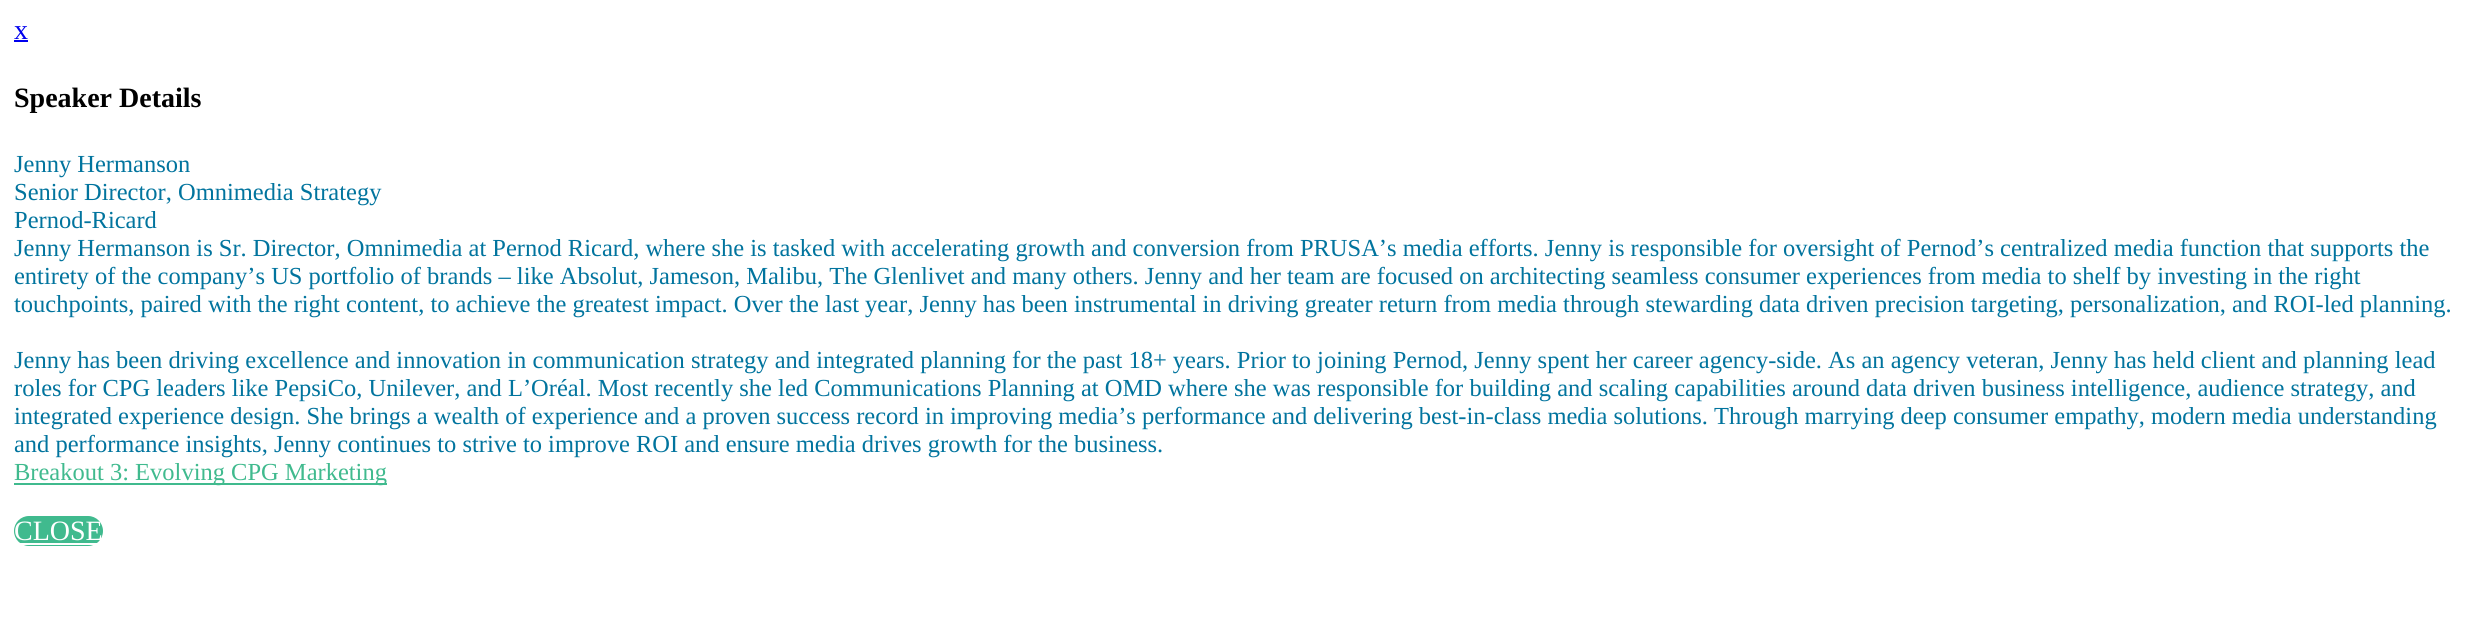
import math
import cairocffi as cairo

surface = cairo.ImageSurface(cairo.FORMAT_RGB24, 2472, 642)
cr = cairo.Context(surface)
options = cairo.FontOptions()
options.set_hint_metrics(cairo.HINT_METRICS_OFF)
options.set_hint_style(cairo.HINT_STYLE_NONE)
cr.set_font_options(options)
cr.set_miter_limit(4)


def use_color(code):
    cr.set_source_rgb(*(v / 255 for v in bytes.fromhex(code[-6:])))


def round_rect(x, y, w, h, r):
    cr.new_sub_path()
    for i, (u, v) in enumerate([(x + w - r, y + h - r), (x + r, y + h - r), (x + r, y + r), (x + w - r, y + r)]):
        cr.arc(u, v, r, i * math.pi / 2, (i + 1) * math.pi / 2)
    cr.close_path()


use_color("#ffffff")
cr.paint()
cr.select_font_face("Liberation Serif")
cr.set_font_size(28)
use_color("#0000ee")
cr.move_to(14, 39)
cr.show_text("x")
cr.rectangle(14, 40, 14, 2)
cr.fill()
cr.select_font_face("Liberation Serif", cairo.FONT_SLANT_NORMAL, cairo.FONT_WEIGHT_BOLD)
use_color("#000000")
cr.move_to(14, 107)
cr.show_text("Speaker Details")
cr.select_font_face("Liberation Serif")
cr.set_font_size(24.5)
use_color("#01749e")
cr.move_to(14, 172)
cr.show_text("Jenny Hermanson")
cr.move_to(14, 200)
cr.show_text("Senior Director, Omnimedia Strategy")
cr.move_to(14, 228)
cr.show_text("Pernod-Ricard")
cr.move_to(14, 256)
cr.show_text("Jenny Hermanson is Sr. Director, Omnimedia at Pernod Ricard, where she is tasked with accelerating growth and conversion from PRUSA’s media efforts. Jenny is responsible for oversight of Pernod’s centralized media function that supports the")
cr.move_to(14, 284)
cr.show_text("entirety of the company’s US portfolio of brands – like Absolut, Jameson, Malibu, The Glenlivet and many others. Jenny and her team are focused on architecting seamless consumer experiences from media to shelf by investing in the right")
cr.move_to(14, 312)
cr.show_text("touchpoints, paired with the right content, to achieve the greatest impact. Over the last year, Jenny has been instrumental in driving greater return from media through stewarding data driven precision targeting, personalization, and ROI-led planning.")
cr.move_to(14, 368)
cr.show_text("Jenny has been driving excellence and innovation in communication strategy and integrated planning for the past 18+ years. Prior to joining Pernod, Jenny spent her career agency-side. As an agency veteran, Jenny has held client and planning lead")
cr.move_to(14, 396)
cr.show_text("roles for CPG leaders like PepsiCo, Unilever, and L’Oréal. Most recently she led Communications Planning at OMD where she was responsible for building and scaling capabilities around data driven business intelligence, audience strategy, and")
cr.move_to(14, 424)
cr.show_text("integrated experience design. She brings a wealth of experience and a proven success record in improving media’s performance and delivering best-in-class media solutions. Through marrying deep consumer empathy, modern media understanding")
cr.move_to(14, 452)
cr.show_text("and performance insights, Jenny continues to strive to improve ROI and ensure media drives growth for the business.")
use_color("#40ba8e")
cr.rectangle(14, 483, 373, 2)
cr.fill()
cr.move_to(14, 480)
cr.show_text("Breakout 3: Evolving CPG Marketing")
round_rect(14, 516, 89, 30, 15)
cr.fill()
cr.set_font_size(28)
use_color("#ffffff")
cr.move_to(14, 540)
cr.show_text("CLOSE")
cr.rectangle(14, 543, 89, 2)
cr.fill()
surface.write_to_png("result.png")
